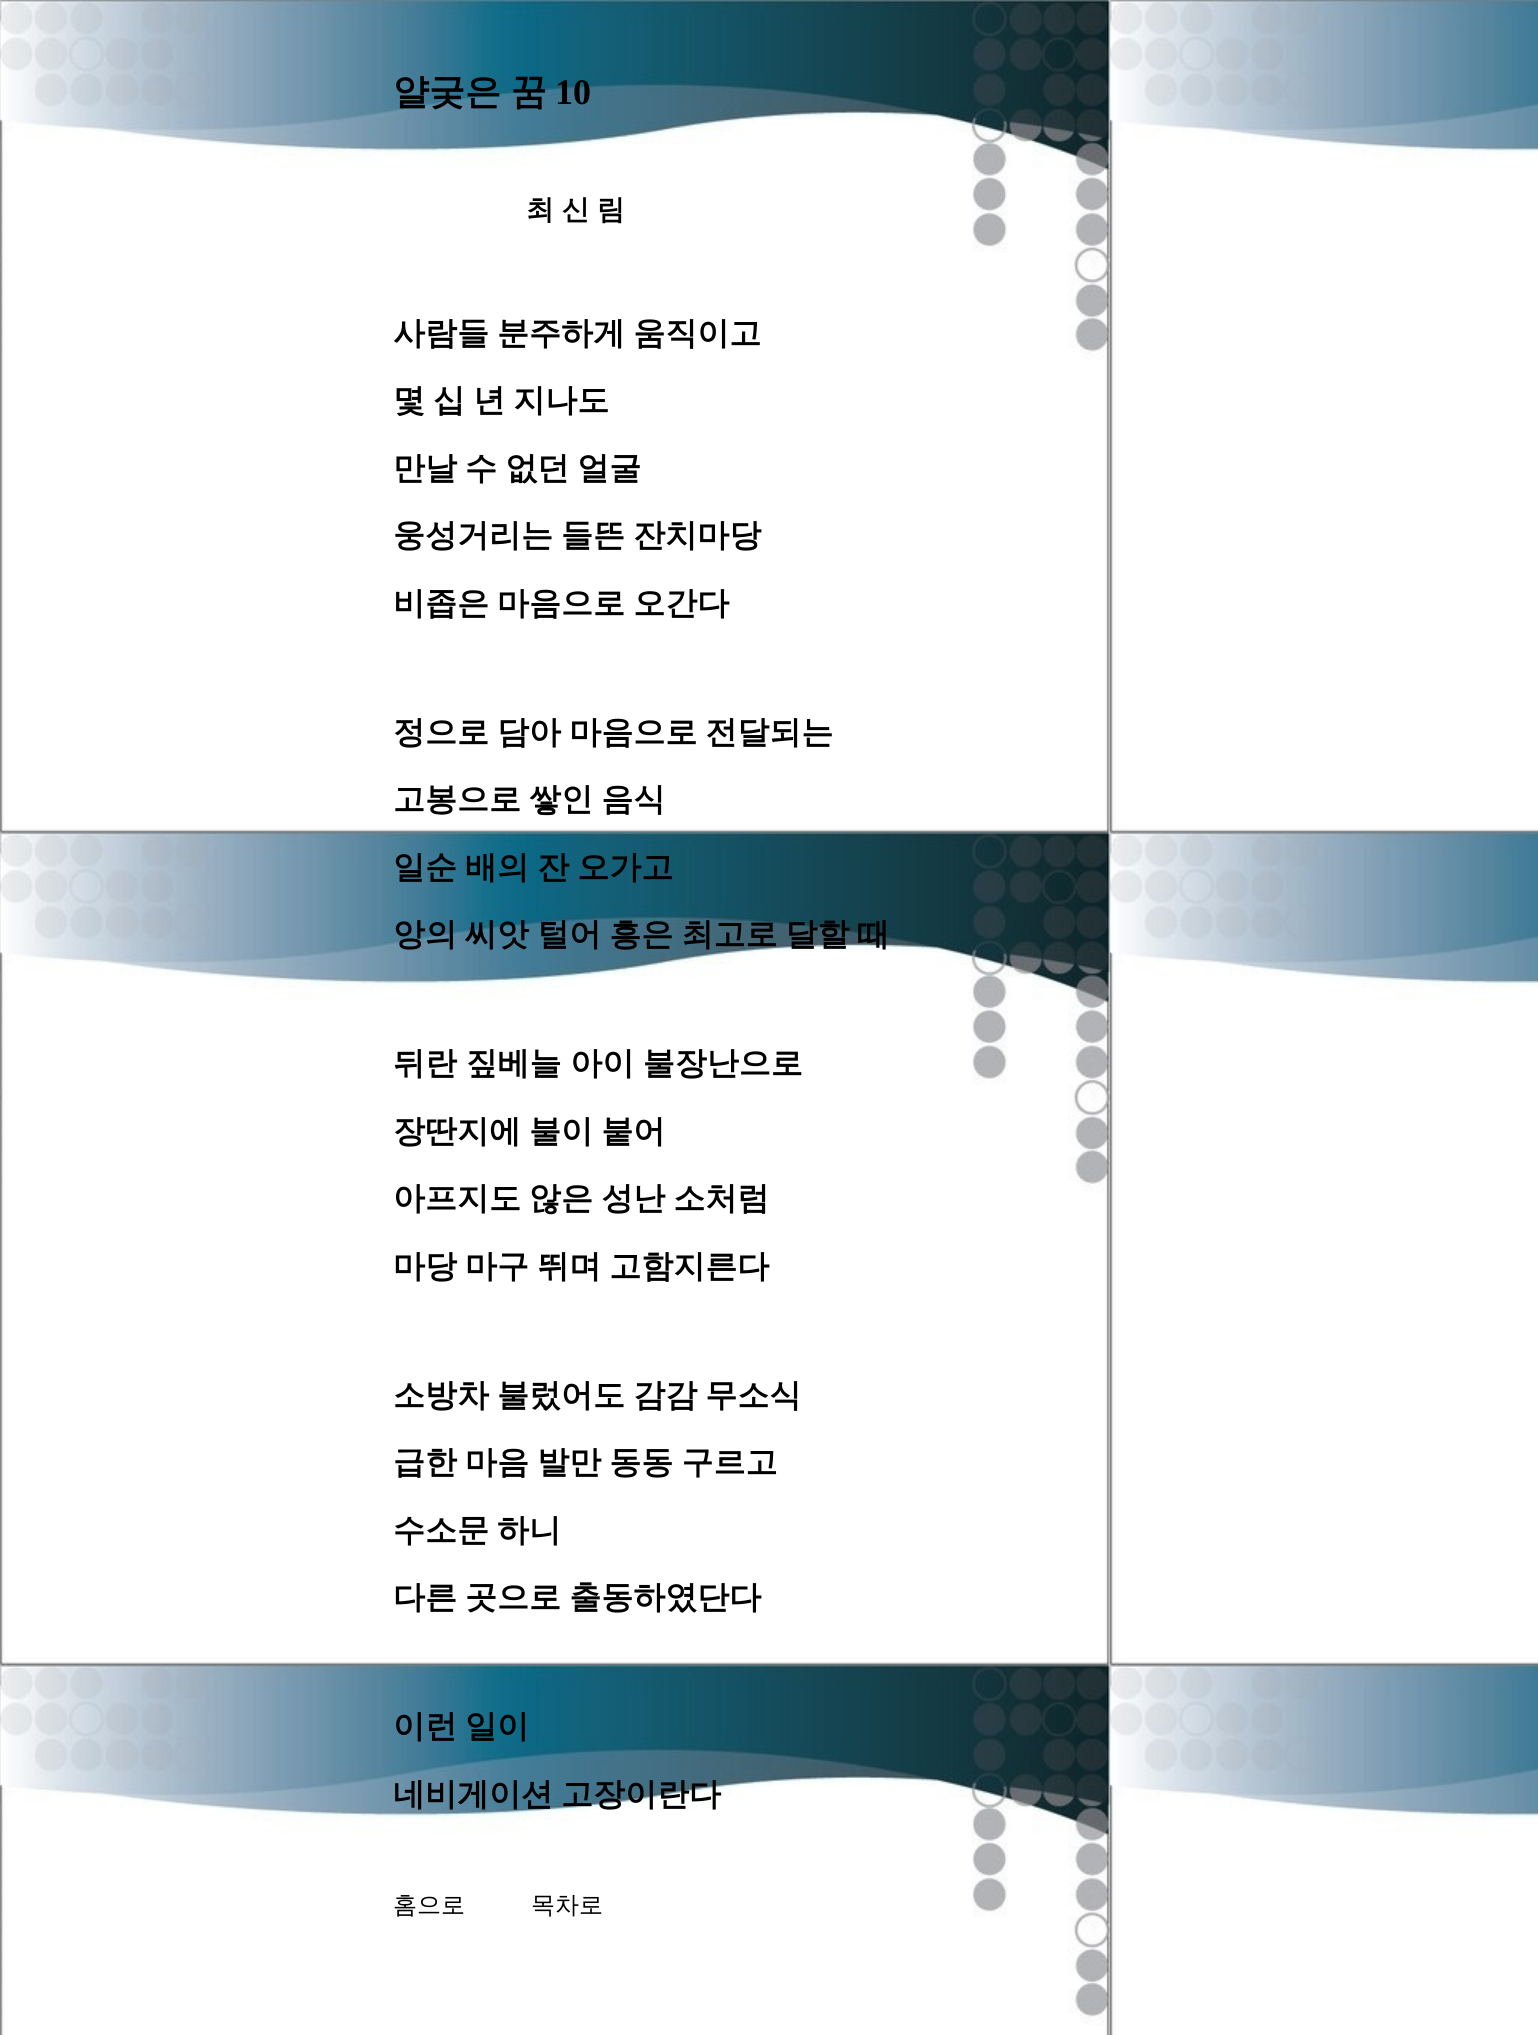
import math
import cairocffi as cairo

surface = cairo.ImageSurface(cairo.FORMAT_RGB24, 1538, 2035)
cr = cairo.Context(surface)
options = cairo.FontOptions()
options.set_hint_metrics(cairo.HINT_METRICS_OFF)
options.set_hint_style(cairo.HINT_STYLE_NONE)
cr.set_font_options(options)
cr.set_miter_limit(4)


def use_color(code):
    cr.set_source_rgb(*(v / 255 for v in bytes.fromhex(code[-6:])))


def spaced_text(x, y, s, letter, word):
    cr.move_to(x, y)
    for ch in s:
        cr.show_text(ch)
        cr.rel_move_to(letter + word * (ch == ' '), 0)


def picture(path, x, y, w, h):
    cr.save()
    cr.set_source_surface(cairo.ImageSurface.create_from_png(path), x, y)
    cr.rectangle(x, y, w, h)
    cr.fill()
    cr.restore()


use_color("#ffffff")
cr.paint()
picture("img1.png", 0, 0, 1538, 2035)
cr.select_font_face("WenQuanYi Zen Hei", cairo.FONT_SLANT_NORMAL, cairo.FONT_WEIGHT_BOLD)
cr.set_font_size(36)
use_color("#000000")
spaced_text(393, 104, "얄궂은 꿈", 0, -1)
cr.select_font_face("Liberation Serif", cairo.FONT_SLANT_NORMAL, cairo.FONT_WEIGHT_BOLD)
cr.move_to(555, 104)
cr.show_text("10")
cr.select_font_face("WenQuanYi Zen Hei", cairo.FONT_SLANT_NORMAL, cairo.FONT_WEIGHT_BOLD)
cr.set_font_size(28)
spaced_text(526, 219, "최 신 림", 0, -1)
cr.set_font_size(32)
spaced_text(393, 344, "사람들 분주하게 움직이고", 0, -1.5)
spaced_text(393, 411, "몇 십 년 지나도", 0, -1.5)
spaced_text(393, 479, "만날 수 없던 얼굴", 0, -1.5)
spaced_text(393, 546, "웅성거리는 들뜬 잔치마당", 0, -1.5)
spaced_text(393, 614, "비좁은 마음으로 오간다", 0, -1.5)
spaced_text(393, 743, "정으로 담아 마음으로 전달되는", 0, -1.5)
spaced_text(393, 810, "고봉으로 쌓인 음식", 0, -1.5)
spaced_text(393, 878, "일순 배의 잔 오가고", 0, -1.5)
spaced_text(393, 945, "앙의 씨앗 털어 흥은 최고로 달할 때", 0, -1.5)
spaced_text(393, 1074, "뒤란 짚베늘 아이 불장난으로", 0, -1)
spaced_text(393, 1142, "장딴지에 불이 붙어", 0, -1.5)
spaced_text(393, 1209, "아프지도 않은 성난 소처럼", 0, -1.5)
spaced_text(393, 1277, "마당 마구 뛰며 고함지른다", 0, -1.5)
spaced_text(393, 1406, "소방차 불렀어도 감감 무소식", 0, -1.5)
spaced_text(393, 1473, "급한 마음 발만 동동 구르고", 0, -1.5)
spaced_text(393, 1541, "수소문 하니", 0, -1.5)
spaced_text(393, 1608, "다른 곳으로 출동하였단다", 0, -1.5)
spaced_text(393, 1737, "이런 일이", 0, -1.5)
spaced_text(393, 1805, "네비게이션 고장이란다", 0, -1.5)
cr.select_font_face("WenQuanYi Zen Hei Medium")
cr.set_font_size(24)
cr.move_to(393, 1913)
cr.show_text("홈으로")
cr.move_to(531, 1913)
cr.show_text("목차로")
surface.write_to_png("result.png")
